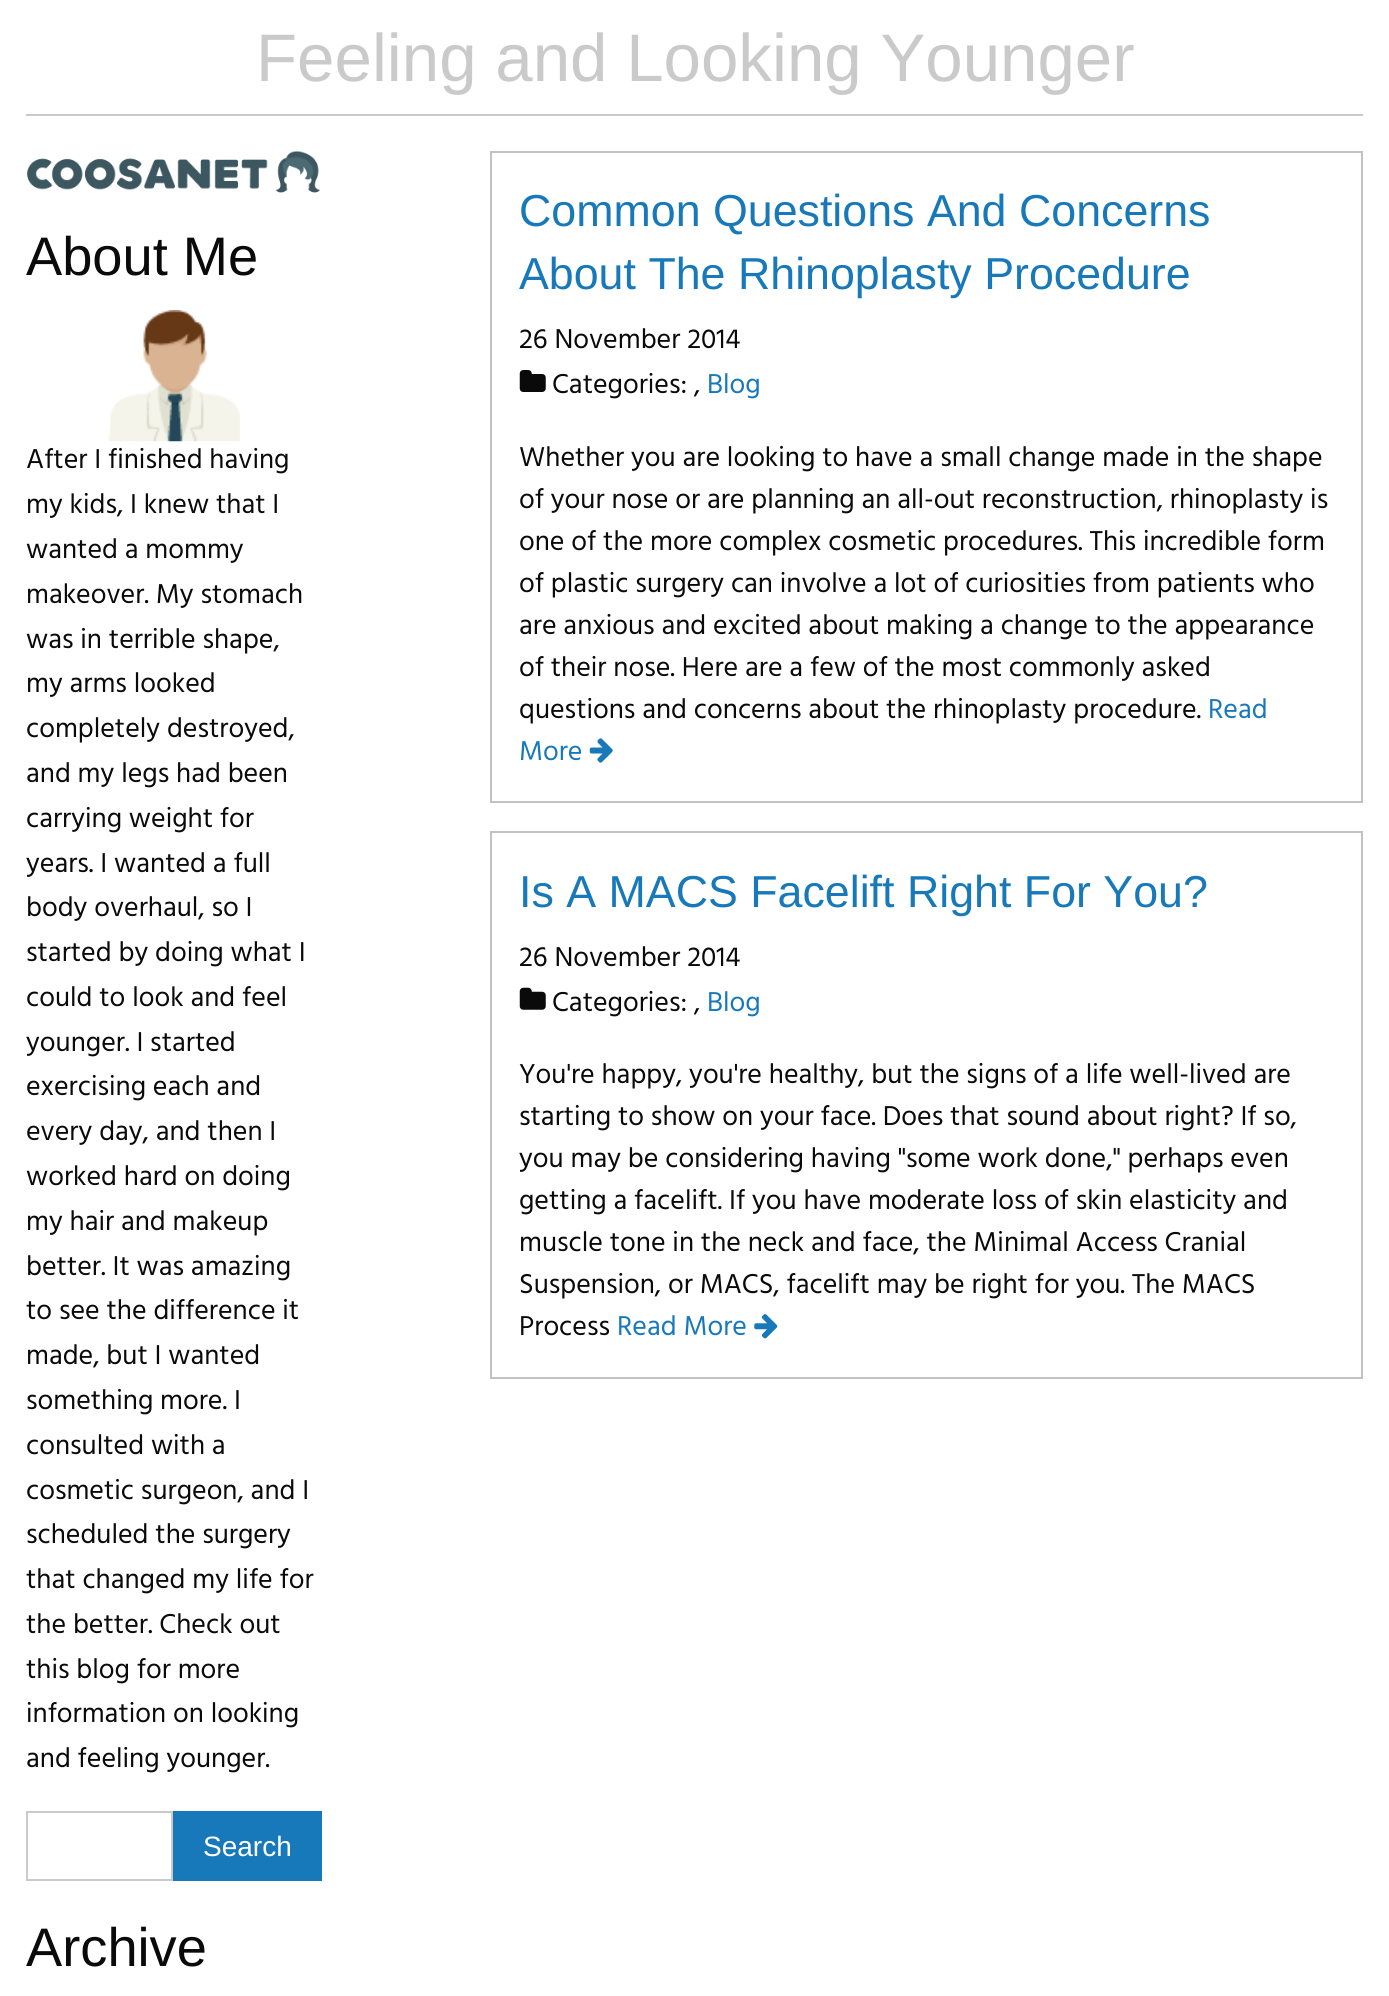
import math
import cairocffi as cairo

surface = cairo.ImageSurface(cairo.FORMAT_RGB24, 1389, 1996)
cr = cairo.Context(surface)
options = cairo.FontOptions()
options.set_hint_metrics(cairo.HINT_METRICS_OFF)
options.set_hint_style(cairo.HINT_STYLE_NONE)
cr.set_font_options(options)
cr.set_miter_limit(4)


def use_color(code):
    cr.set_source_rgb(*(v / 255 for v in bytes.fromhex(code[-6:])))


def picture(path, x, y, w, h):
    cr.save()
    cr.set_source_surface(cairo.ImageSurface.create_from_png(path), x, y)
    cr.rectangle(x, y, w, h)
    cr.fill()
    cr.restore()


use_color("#ffffff")
cr.paint()
cr.select_font_face("Liberation Sans")
cr.set_font_size(67.25)
use_color("#cacaca")
cr.move_to(256, 81)
cr.show_text("Feeling and Looking Younger")
cr.rectangle(26, 114, 1337, 2)
cr.fill()
picture("img1.png", 27, 150, 294, 43)
cr.set_font_size(54.25)
use_color("#0a0a0a")
cr.move_to(26, 275)
cr.show_text("About Me")
picture("img2.png", 108, 310, 132, 132)
cr.select_font_face("Hind")
cr.set_font_size(28)
cr.move_to(26, 468)
cr.show_text("After I finished having")
cr.move_to(26, 513)
cr.show_text("my kids, I knew that I")
cr.move_to(26, 558)
cr.show_text("wanted a mommy")
cr.move_to(26, 603)
cr.show_text("makeover. My stomach")
cr.move_to(26, 648)
cr.show_text("was in terrible shape,")
cr.move_to(26, 692)
cr.show_text("my arms looked")
cr.move_to(26, 737)
cr.show_text("completely destroyed,")
cr.move_to(26, 782)
cr.show_text("and my legs had been")
cr.move_to(26, 827)
cr.show_text("carrying weight for")
cr.move_to(26, 872)
cr.show_text("years. I wanted a full")
cr.move_to(26, 916)
cr.show_text("body overhaul, so I")
cr.move_to(26, 961)
cr.show_text("started by doing what I")
cr.move_to(26, 1006)
cr.show_text("could to look and feel")
cr.move_to(26, 1051)
cr.show_text("younger. I started")
cr.move_to(26, 1095)
cr.show_text("exercising each and")
cr.move_to(26, 1140)
cr.show_text("every day, and then I")
cr.move_to(26, 1185)
cr.show_text("worked hard on doing")
cr.move_to(26, 1230)
cr.show_text("my hair and makeup")
cr.move_to(26, 1275)
cr.show_text("better. It was amazing")
cr.move_to(26, 1319)
cr.show_text("to see the difference it")
cr.move_to(26, 1364)
cr.show_text("made, but I wanted")
cr.move_to(26, 1409)
cr.show_text("something more. I")
cr.move_to(26, 1454)
cr.show_text("consulted with a")
cr.move_to(26, 1499)
cr.show_text("cosmetic surgeon, and I")
cr.move_to(26, 1543)
cr.show_text("scheduled the surgery")
cr.move_to(26, 1588)
cr.show_text("that changed my life for")
cr.move_to(26, 1633)
cr.show_text("the better. Check out")
cr.move_to(26, 1678)
cr.show_text("this blog for more")
cr.move_to(26, 1722)
cr.show_text("information on looking")
cr.move_to(26, 1767)
cr.show_text("and feeling younger.")
cr.rectangle(27, 1812, 145, 68)
use_color("#cacaca")
cr.stroke()
use_color("#1779ba")
cr.rectangle(173, 1811, 149, 70)
cr.fill()
cr.select_font_face("Liberation Sans")
use_color("#fefefe")
cr.move_to(203, 1856)
cr.show_text("Search")
cr.set_font_size(54.25)
use_color("#0a0a0a")
cr.move_to(26, 1966)
cr.show_text("Archive")
cr.rectangle(491, 152, 871, 650)
use_color("#c2c2c2")
cr.stroke()
cr.set_font_size(44.75)
use_color("#1779ba")
cr.move_to(519, 226)
cr.show_text("Common Questions And Concerns")
cr.move_to(519, 289)
cr.show_text("About The Rhinoplasty Procedure")
cr.select_font_face("Hind")
cr.set_font_size(28)
use_color("#0a0a0a")
cr.move_to(519, 348)
cr.show_text("26 November 2014")
picture("img3.png", 519, 370, 27, 22)
cr.move_to(552, 393)
cr.show_text("Categories: ,")
use_color("#1779ba")
cr.move_to(707, 393)
cr.show_text("Blog")
use_color("#0a0a0a")
cr.move_to(519, 466)
cr.show_text("Whether you are looking to have a small change made in the shape")
cr.move_to(519, 508)
cr.show_text("of your nose or are planning an all-out reconstruction, rhinoplasty is")
cr.move_to(519, 550)
cr.show_text("one of the more complex cosmetic procedures. This incredible form")
cr.move_to(519, 592)
cr.show_text("of plastic surgery can involve a lot of curiosities from patients who")
cr.move_to(519, 634)
cr.show_text("are anxious and excited about making a change to the appearance")
cr.move_to(519, 676)
cr.show_text("of their nose. Here are a few of the most commonly asked")
cr.move_to(519, 718)
cr.show_text("questions and concerns about the rhinoplasty procedure.")
use_color("#1779ba")
cr.move_to(1208, 718)
cr.show_text("Read")
cr.move_to(519, 760)
cr.show_text("More")
picture("img4.png", 589, 738, 24, 25)
cr.rectangle(491, 832, 871, 546)
use_color("#c2c2c2")
cr.stroke()
cr.select_font_face("Liberation Sans")
cr.set_font_size(44.75)
use_color("#1779ba")
cr.move_to(519, 907)
cr.show_text("Is A MACS Facelift Right For You?")
cr.select_font_face("Hind")
cr.set_font_size(28)
use_color("#0a0a0a")
cr.move_to(519, 966)
cr.show_text("26 November 2014")
picture("img5.png", 519, 987, 27, 23)
cr.move_to(552, 1011)
cr.show_text("Categories: ,")
use_color("#1779ba")
cr.move_to(707, 1011)
cr.show_text("Blog")
use_color("#0a0a0a")
cr.move_to(519, 1083)
cr.show_text("You're happy, you're healthy, but the signs of a life well-lived are")
cr.move_to(519, 1125)
cr.show_text("starting to show on your face. Does that sound about right? If so,")
cr.move_to(519, 1167)
cr.show_text("you may be considering having \"some work done,\" perhaps even")
cr.move_to(519, 1209)
cr.show_text("getting a facelift. If you have moderate loss of skin elasticity and")
cr.move_to(519, 1251)
cr.show_text("muscle tone in the neck and face, the Minimal Access Cranial")
cr.move_to(519, 1293)
cr.show_text("Suspension, or MACS, facelift may be right for you. The MACS")
cr.move_to(519, 1335)
cr.show_text("Process")
use_color("#1779ba")
cr.move_to(617, 1335)
cr.show_text("Read More")
picture("img6.png", 754, 1314, 24, 25)
surface.write_to_png("result.png")
